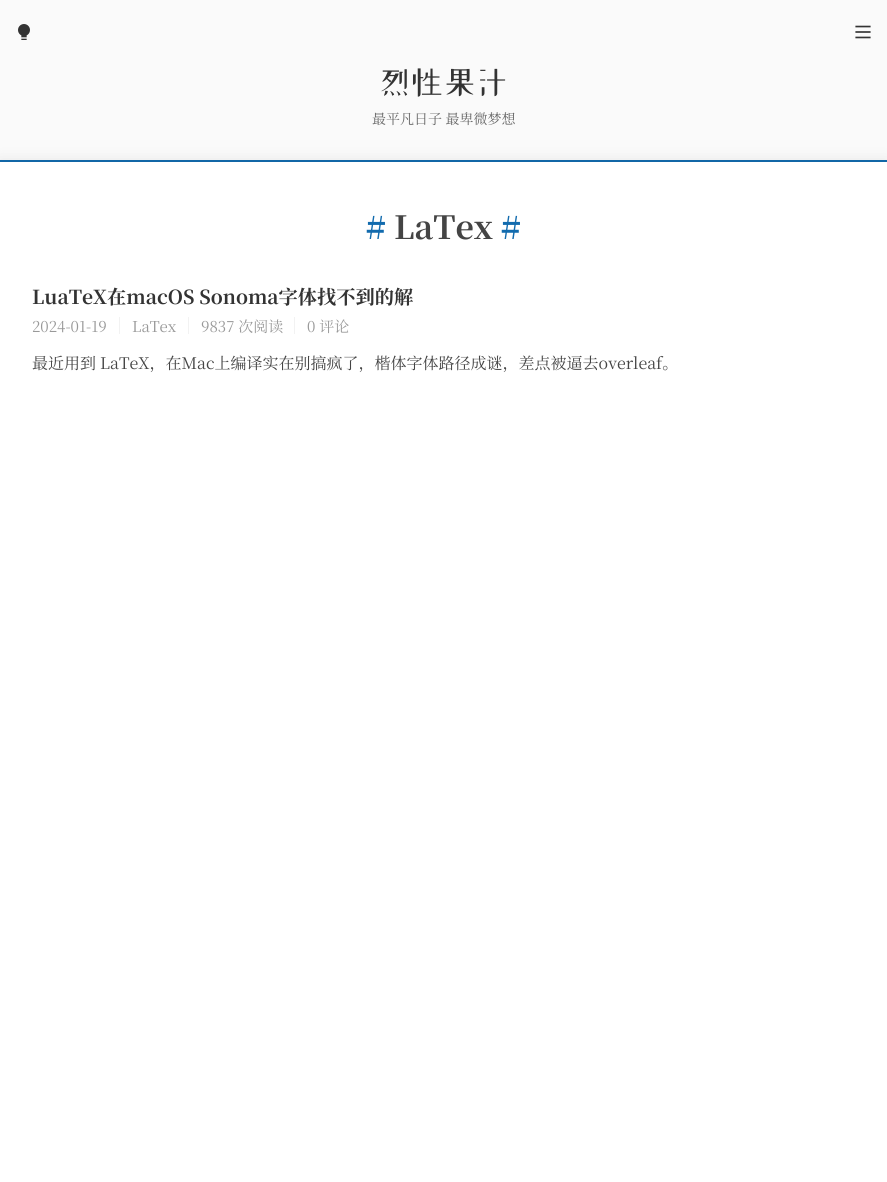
import math
import cairocffi as cairo

surface = cairo.ImageSurface(cairo.FORMAT_RGB24, 887, 1182)
cr = cairo.Context(surface)
options = cairo.FontOptions()
options.set_hint_metrics(cairo.HINT_METRICS_OFF)
options.set_hint_style(cairo.HINT_STYLE_NONE)
cr.set_font_options(options)
cr.set_miter_limit(4)


def use_color(code):
    cr.set_source_rgb(*(v / 255 for v in bytes.fromhex(code[-6:])))


def round_rect(x, y, w, h, r):
    cr.new_sub_path()
    for i, (u, v) in enumerate([(x + w - r, y + h - r), (x + r, y + h - r), (x + r, y + r), (x + w - r, y + r)]):
        cr.arc(u, v, r, i * math.pi / 2, (i + 1) * math.pi / 2)
    cr.close_path()


def shadow(x, y, w, h, r, blur, alpha):
    cr.push_group_with_content(cairo.CONTENT_ALPHA)
    cr.set_operator(cairo.OPERATOR_SOURCE)
    for i in range(15, -16, -2):
        e = blur * i / 6
        if min(w, h) + 2 * e > 0:
            cr.set_source_rgba(0, 0, 0, alpha * math.erfc((i - 1) / 8.5) / 2)
            round_rect(x - e, y - e, w + 2 * e, h + 2 * e, max(0, min(r + e + blur * .6, min(w, h) / 2 + e)))
            cr.fill()
    cr.mask(cr.pop_group())


def picture(path, x, y, w, h):
    cr.save()
    cr.set_source_surface(cairo.ImageSurface.create_from_png(path), x, y)
    cr.rectangle(x, y, w, h)
    cr.fill()
    cr.restore()


use_color("#fafafa")
cr.paint()
use_color("#126bae")
cr.rectangle(0, 160, 887, 2)
cr.fill()
picture("img1.png", 18, 24, 12, 16)
picture("img2.png", 855, 25, 16, 14)
cr.select_font_face("ZCOOL XiaoWei")
cr.set_font_size(32)
use_color("#333333")
cr.move_to(378, 94)
cr.show_text("烈性果汁")
cr.select_font_face("Noto Serif SC")
cr.set_font_size(14)
use_color("#666666")
cr.move_to(372, 124)
cr.show_text("最平凡日子 最卑微梦想")
use_color("#000000")
shadow(0, 162, 887, 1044, 0, 8, 0.1)
use_color("#ffffff")
cr.rectangle(0, 162, 887, 1020)
cr.fill()
cr.select_font_face("Noto Serif SC", cairo.FONT_SLANT_NORMAL, cairo.FONT_WEIGHT_BOLD)
cr.set_font_size(32)
use_color("#126bae")
cr.move_to(366, 239)
cr.show_text("#")
use_color("#444444")
cr.move_to(394, 239)
cr.show_text("LaTex")
use_color("#126bae")
cr.move_to(501, 239)
cr.show_text("#")
cr.set_font_size(19.25)
use_color("#333333")
cr.move_to(32, 304)
cr.show_text("LuaTeX在macOS Sonoma字体找不到的解")
cr.select_font_face("Noto Serif SC")
cr.set_font_size(15)
use_color("#999999")
cr.move_to(32, 332)
cr.show_text("2024-01-19")
use_color("#f2f2f2")
cr.rectangle(119, 317, 1, 17)
cr.fill()
use_color("#999999")
cr.move_to(132, 332)
cr.show_text("LaTex")
use_color("#f2f2f2")
cr.rectangle(188, 317, 1, 17)
cr.fill()
use_color("#999999")
cr.move_to(201, 332)
cr.show_text("9837 次阅读")
use_color("#f2f2f2")
cr.rectangle(294, 317, 1, 17)
cr.fill()
use_color("#999999")
cr.move_to(307, 332)
cr.show_text("0 评论")
cr.set_font_size(16)
use_color("#444444")
cr.move_to(32, 369)
cr.show_text("最近用到 LaTeX，在Mac上编译实在别搞疯了，楷体字体路径成谜，差点被逼去overleaf。")
surface.write_to_png("result.png")
